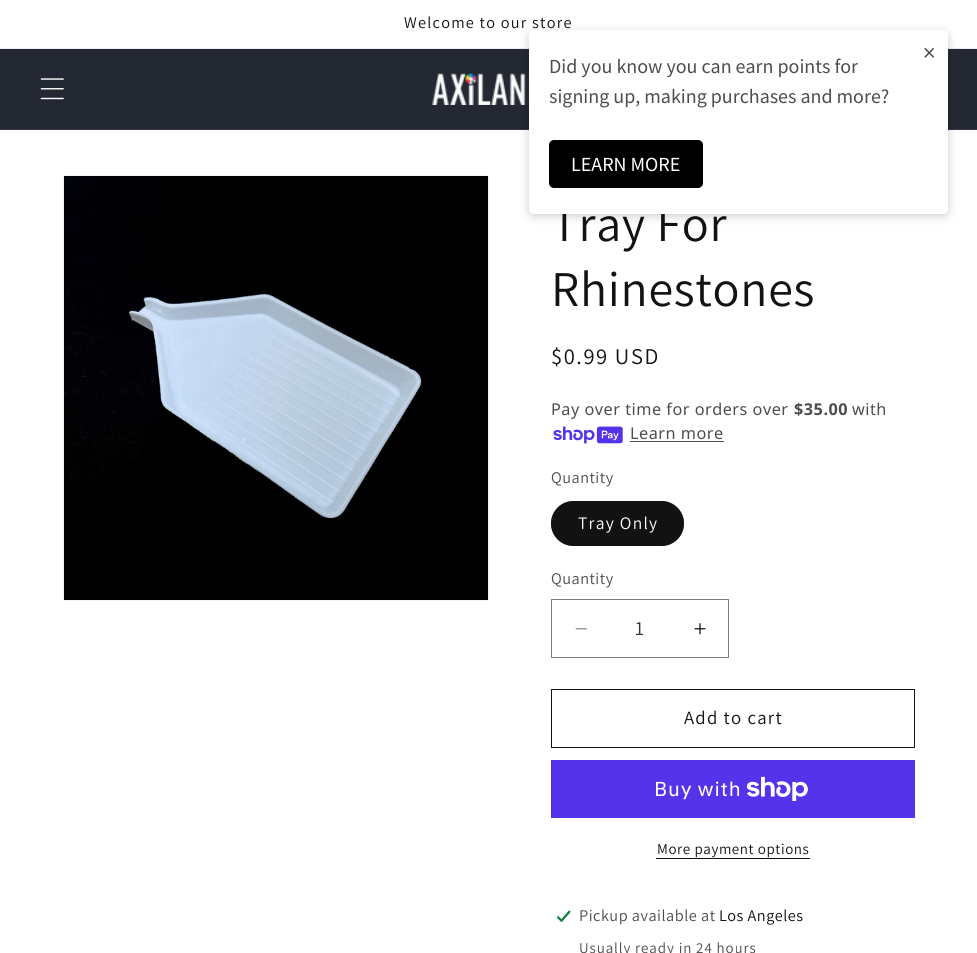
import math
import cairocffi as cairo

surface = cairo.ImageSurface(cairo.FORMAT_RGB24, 977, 953)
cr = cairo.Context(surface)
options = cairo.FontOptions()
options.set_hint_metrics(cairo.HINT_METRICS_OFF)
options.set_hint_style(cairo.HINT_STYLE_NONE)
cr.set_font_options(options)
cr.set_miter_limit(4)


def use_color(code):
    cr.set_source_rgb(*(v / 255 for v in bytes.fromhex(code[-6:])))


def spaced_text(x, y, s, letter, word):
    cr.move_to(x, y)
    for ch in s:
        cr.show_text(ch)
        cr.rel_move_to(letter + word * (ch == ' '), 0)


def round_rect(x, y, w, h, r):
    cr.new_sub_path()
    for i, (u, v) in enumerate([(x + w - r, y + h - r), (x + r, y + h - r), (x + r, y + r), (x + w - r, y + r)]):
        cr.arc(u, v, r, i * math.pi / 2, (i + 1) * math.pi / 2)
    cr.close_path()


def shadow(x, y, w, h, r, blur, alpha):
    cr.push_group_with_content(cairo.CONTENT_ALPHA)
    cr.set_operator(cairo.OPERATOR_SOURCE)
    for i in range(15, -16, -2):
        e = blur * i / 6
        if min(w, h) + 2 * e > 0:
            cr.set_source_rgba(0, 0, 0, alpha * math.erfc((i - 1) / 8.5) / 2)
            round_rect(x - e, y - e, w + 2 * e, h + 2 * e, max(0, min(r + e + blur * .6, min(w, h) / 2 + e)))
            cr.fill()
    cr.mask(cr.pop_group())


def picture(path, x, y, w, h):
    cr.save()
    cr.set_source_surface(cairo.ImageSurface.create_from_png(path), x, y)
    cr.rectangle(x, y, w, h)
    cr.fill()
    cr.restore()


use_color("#ffffff")
cr.paint()
use_color("#ececec")
cr.rectangle(0, 48, 977, 1)
cr.fill()
cr.select_font_face("Assistant")
cr.set_font_size(16.25)
use_color("#121212")
spaced_text(404, 28, "Welcome to our store", 1.25, 0)
use_color("#242833")
cr.rectangle(0, 49, 977, 80)
cr.fill()
use_color("#363943")
cr.rectangle(0, 129, 977, 1)
cr.fill()
picture("img2.png", 432, 73, 97, 32)
use_color("#000000")
shadow(529, 33, 419, 183, 5, 5, 0.2)
cr.set_font_size(50)
use_color("#121212")
spaced_text(551, 241, "Tray For", 0.75, 0)
use_color("#ffffff")
round_rect(529, 30, 419, 184, 5)
cr.fill()
cr.select_font_face("Source Sans Pro")
cr.set_font_size(25)
use_color("#4d4d4d")
cr.move_to(923, 61)
cr.show_text("×")
cr.set_font_size(20)
cr.move_to(549, 73)
cr.show_text("Did you know you can earn points for")
cr.move_to(549, 103)
cr.show_text("signing up, making purchases and more?")
use_color("#000000")
round_rect(549, 140, 154, 48, 5)
cr.fill()
use_color("#ffffff")
cr.move_to(571, 171)
cr.show_text("LEARN MORE")
picture("img1.png", 40, 78, 24, 22)
cr.rectangle(63.5, 175.5, 425, 425)
use_color("#f3f3f3")
cr.set_line_width(1)
cr.stroke()
picture("img3.png", 64, 176, 424, 424)
cr.select_font_face("Assistant")
cr.set_font_size(50)
use_color("#121212")
spaced_text(551, 306, "Rhinestones", 0.75, 0)
cr.set_font_size(22.5)
spaced_text(551, 364, "$0.99 USD", 1.6, 0)
cr.select_font_face("Noto Sans")
cr.set_font_size(16.25)
use_color("#4d4d4d")
spaced_text(551, 415, "Pay over time for orders over", 0.5, 0)
cr.select_font_face("Noto Sans", cairo.FONT_SLANT_NORMAL, cairo.FONT_WEIGHT_BOLD)
spaced_text(794, 415, "$35.00", 0.5, 0)
cr.select_font_face("Noto Sans")
spaced_text(852, 415, "with", 0.5, 0)
picture("img4.png", 553, 426, 70, 18)
spaced_text(630, 439, "Learn more", 0.5, 0)
cr.rectangle(630, 441, 94, 1)
cr.fill()
cr.select_font_face("Assistant")
spaced_text(551, 483, "Quantity", 0.5, 0)
use_color("#121212")
round_rect(551, 501, 133, 45, 22.5)
cr.fill()
round_rect(551.5, 501.5, 132, 44, 22)
cr.set_source_rgba(0.071, 0.071, 0.071, 0.55)
cr.stroke()
cr.set_font_size(17.5)
use_color("#ffffff")
spaced_text(578, 529, "Tray Only", 1.25, 0)
cr.set_font_size(16.25)
use_color("#4d4d4d")
spaced_text(551, 584, "Quantity", 0.5, 0)
picture("img5.png", 575, 628, 12, 2)
picture("img6.png", 694, 623, 12, 12)
cr.rectangle(551.5, 599.5, 177, 58)
use_color("#7d7d7d")
cr.stroke()
cr.set_font_size(20)
use_color("#363636")
cr.move_to(635, 635)
cr.show_text("1")
cr.rectangle(551.5, 689.5, 363, 58)
use_color("#121212")
cr.stroke()
cr.set_font_size(18.75)
spaced_text(684, 724, "Add to cart", 1.25, 0)
use_color("#5433eb")
cr.rectangle(551, 760, 364, 58)
cr.fill()
cr.select_font_face("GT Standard")
cr.set_font_size(20)
use_color("#ffffff")
spaced_text(654, 796, "Buy with", 0.75, 0)
picture("img7.png", 746, 776, 62, 25)
cr.select_font_face("Assistant")
cr.set_font_size(15)
use_color("#121212")
spaced_text(657, 854, "More payment options", 0.6, 0)
cr.rectangle(656, 858, 154, 1)
cr.fill()
picture("img8.png", 556, 910, 15, 13)
cr.set_font_size(16.25)
use_color("#4d4d4d")
spaced_text(579, 921, "Pickup available at", 0.5, 0)
use_color("#121212")
spaced_text(719, 921, "Los Angeles", 0.5, 0)
cr.set_font_size(15)
use_color("#4d4d4d")
spaced_text(579, 953, "Usually ready in 24 hours", 0.9, 0)
surface.write_to_png("result.png")
